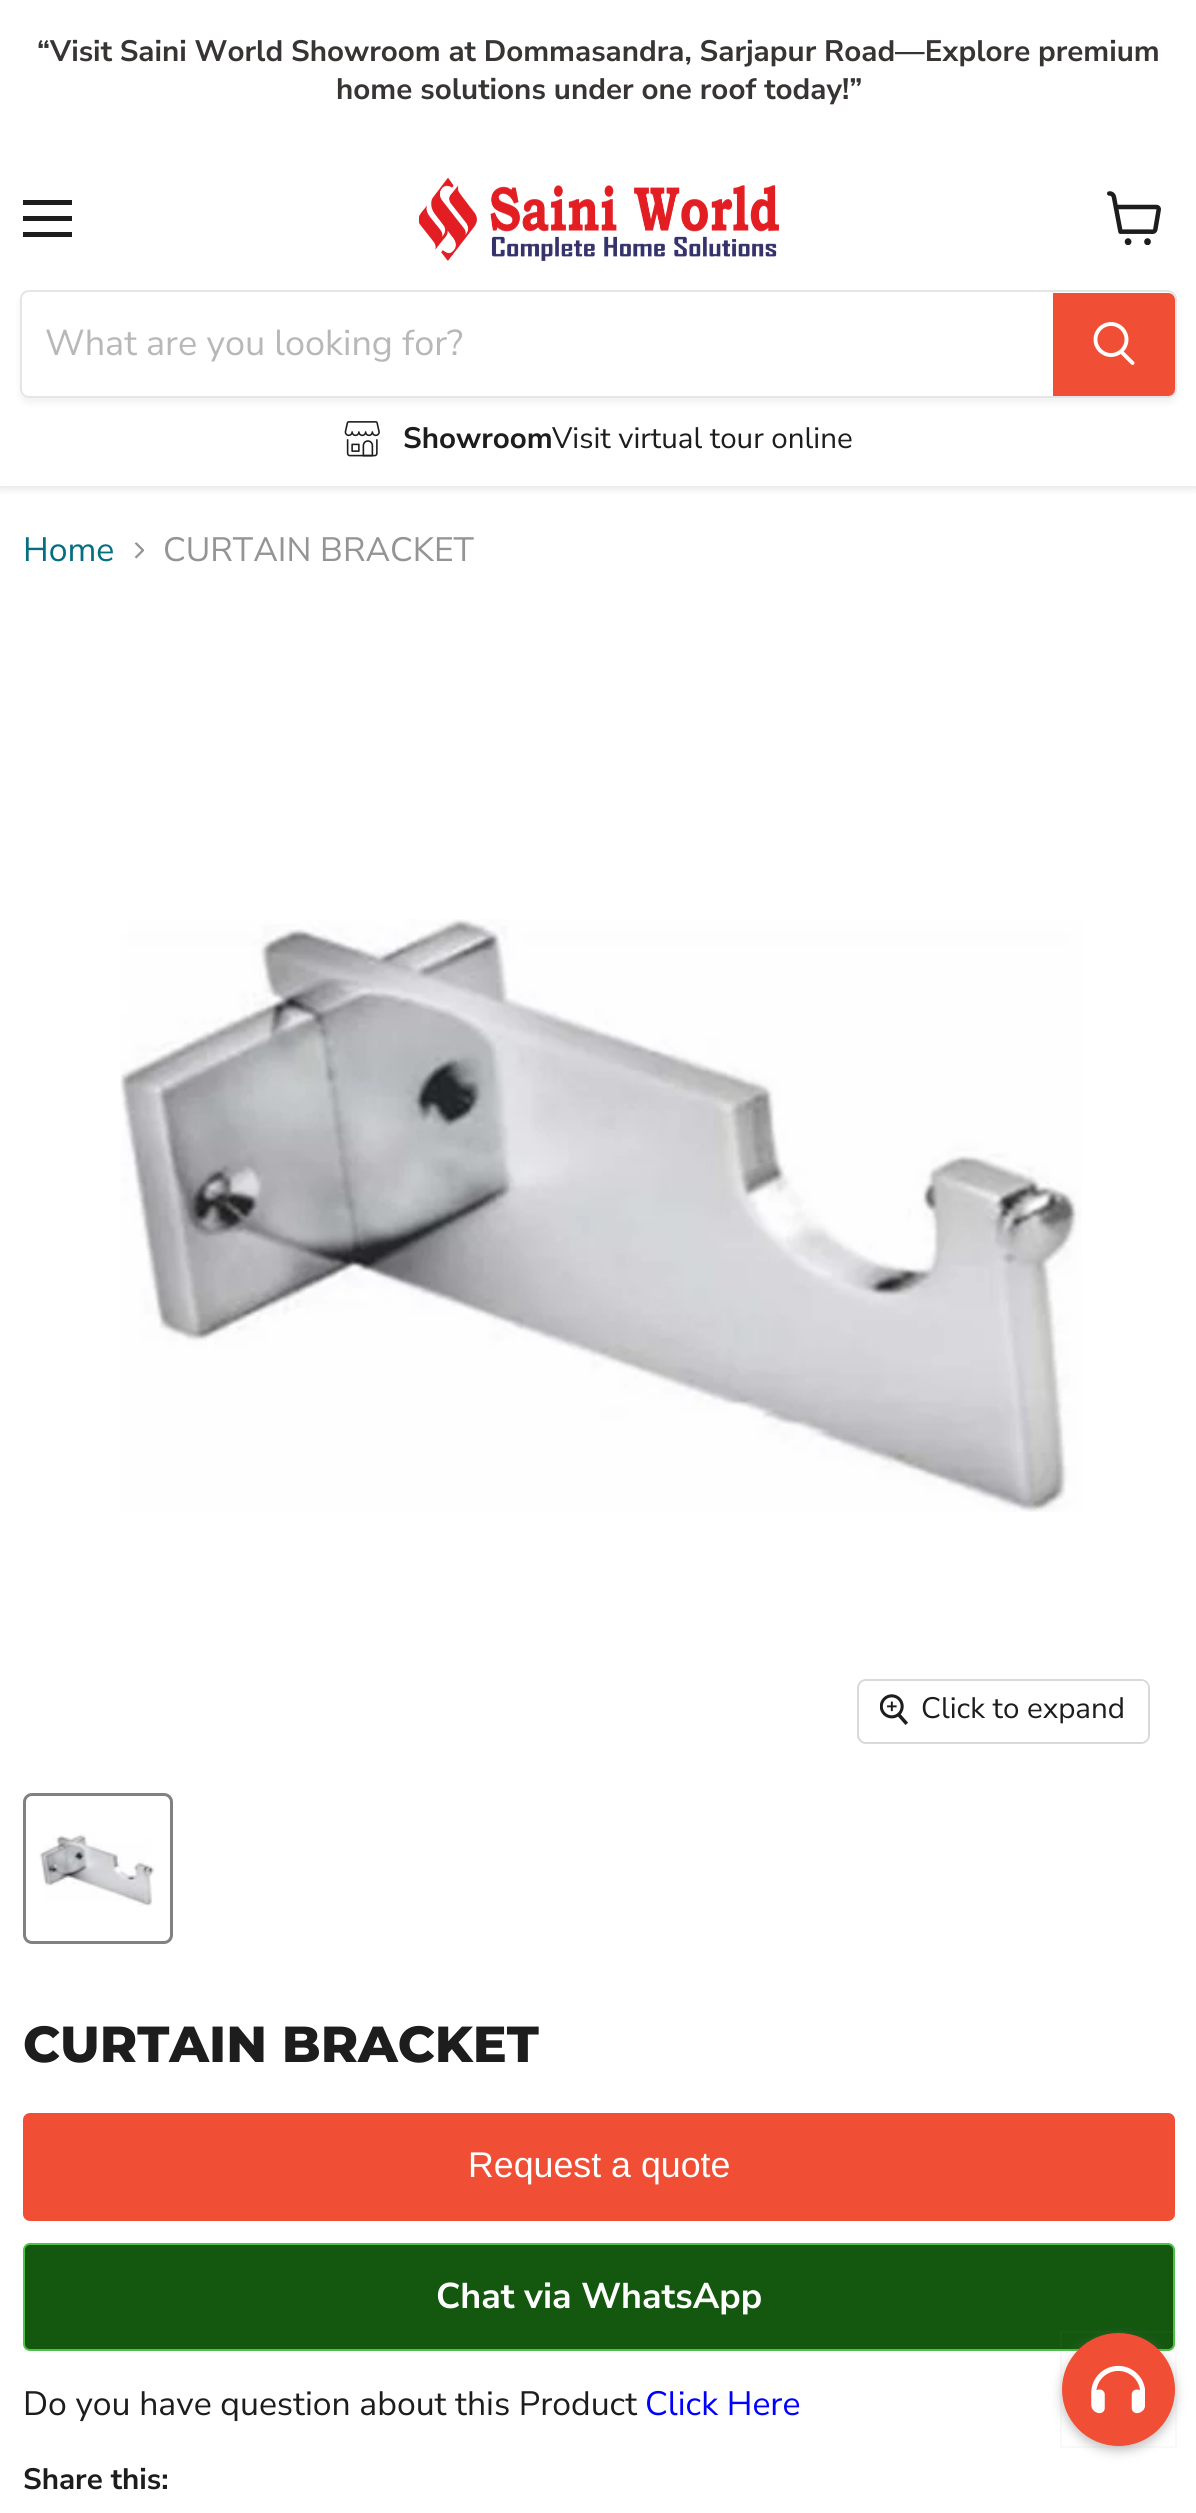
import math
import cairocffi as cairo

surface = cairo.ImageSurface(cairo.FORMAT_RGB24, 1196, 2513)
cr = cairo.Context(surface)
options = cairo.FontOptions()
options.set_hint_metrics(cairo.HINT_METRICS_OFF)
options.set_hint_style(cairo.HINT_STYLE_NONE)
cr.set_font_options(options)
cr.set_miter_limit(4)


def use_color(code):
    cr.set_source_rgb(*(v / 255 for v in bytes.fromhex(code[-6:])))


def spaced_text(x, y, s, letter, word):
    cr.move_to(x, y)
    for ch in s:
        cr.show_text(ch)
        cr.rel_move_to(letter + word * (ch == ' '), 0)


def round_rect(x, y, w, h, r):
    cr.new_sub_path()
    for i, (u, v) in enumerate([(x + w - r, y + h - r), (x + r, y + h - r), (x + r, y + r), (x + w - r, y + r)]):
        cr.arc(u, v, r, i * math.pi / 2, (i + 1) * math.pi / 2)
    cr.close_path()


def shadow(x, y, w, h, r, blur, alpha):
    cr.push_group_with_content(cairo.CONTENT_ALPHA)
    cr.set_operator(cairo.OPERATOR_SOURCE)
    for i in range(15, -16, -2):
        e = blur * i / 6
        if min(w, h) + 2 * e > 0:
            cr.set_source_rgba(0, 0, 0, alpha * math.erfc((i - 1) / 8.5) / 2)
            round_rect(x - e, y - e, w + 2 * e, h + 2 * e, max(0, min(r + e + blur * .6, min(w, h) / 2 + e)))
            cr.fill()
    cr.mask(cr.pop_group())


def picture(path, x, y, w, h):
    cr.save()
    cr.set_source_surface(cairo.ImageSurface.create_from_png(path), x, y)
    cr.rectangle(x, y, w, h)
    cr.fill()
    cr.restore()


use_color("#ffffff")
cr.paint()
cr.save()
cr.rectangle(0, 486, 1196, 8)
cr.clip()
use_color("#808080")
shadow(0, 146, 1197, 342, 0, 4.5, 0.25)
cr.restore()
use_color("#ffffff")
cr.rectangle(0, 140, 1196, 4)
cr.fill()
cr.select_font_face("Nunito Sans", cairo.FONT_SLANT_NORMAL, cairo.FONT_WEIGHT_BOLD)
cr.set_font_size(29.55)
use_color("#383434")
spaced_text(37, 61, "“Visit Saini World Showroom at Dommasandra, Sarjapur Road—Explore premium", 0, -0.25)
cr.move_to(336, 99)
cr.show_text("home solutions under one roof today!”")
use_color("#1d1d1d")
cr.rectangle(23, 200, 49, 5)
cr.fill()
cr.rectangle(23, 216, 49, 5)
cr.fill()
cr.rectangle(23, 232, 49, 5)
cr.fill()
picture("img1.png", 1107, 191, 54, 54)
picture("img2.png", 419, 177, 360, 84)
cr.save()
cr.set_fill_rule(cairo.FILL_RULE_EVEN_ODD)
cr.new_path()
cr.move_to(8, 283)
cr.line_to(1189, 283)
cr.line_to(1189, 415)
cr.line_to(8, 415)
cr.close_path()
cr.move_to(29, 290)
cr.line_to(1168, 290)
cr.curve_to(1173, 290, 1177, 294, 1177, 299)
cr.line_to(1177, 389)
cr.curve_to(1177, 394, 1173, 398, 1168, 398)
cr.line_to(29, 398)
cr.curve_to(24, 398, 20, 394, 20, 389)
cr.line_to(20, 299)
cr.curve_to(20, 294, 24, 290, 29, 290)
cr.close_path()
cr.clip()
use_color("#808080")
shadow(20, 295, 1157, 108, 9, 3.5, 0.11)
cr.restore()
round_rect(21, 291, 1155, 106, 8)
cr.set_source_rgba(0.502, 0.502, 0.502, 0.2)
cr.stroke()
cr.select_font_face("Nunito Sans")
cr.set_font_size(36)
use_color("#b8b8b8")
cr.move_to(45, 355)
cr.show_text("What are you looking for?")
use_color("#f04f36")
cr.new_path()
cr.move_to(1054, 294)
cr.line_to(1168, 294)
cr.curve_to(1171.5, 294, 1174, 296.5, 1174, 300)
cr.line_to(1174, 389)
cr.curve_to(1174, 392.5, 1171.5, 395, 1168, 395)
cr.line_to(1054, 395)
cr.close_path()
cr.fill_preserve()
cr.stroke()
cr.new_path()
cr.move_to(1132.5, 363)
cr.line_to(1121.5, 352)
use_color("#ffffff")
cr.set_line_width(3.9)
cr.set_line_cap(cairo.LINE_CAP_ROUND)
cr.stroke()
cr.arc(1111, 339.5, 15.5, 0, 2 * math.pi)
cr.set_line_cap(cairo.LINE_CAP_BUTT)
cr.stroke()
picture("img3.png", 344, 421, 36, 36)
cr.select_font_face("Nunito Sans", cairo.FONT_SLANT_NORMAL, cairo.FONT_WEIGHT_BOLD)
cr.set_font_size(29.55)
use_color("#1d1d1d")
cr.move_to(403, 448)
cr.show_text("Showroom")
cr.select_font_face("Nunito Sans")
cr.move_to(552, 448)
cr.show_text("Visit virtual tour online")
cr.set_font_size(33.75)
use_color("#046e82")
cr.move_to(23, 561)
cr.show_text("Home")
picture("img4.png", 134, 542, 11, 17)
use_color("#949494")
cr.move_to(163, 561)
cr.show_text("CURTAIN BRACKET")
picture("img5.png", 120, 919, 962, 593)
round_rect(858, 1680, 291, 63, 8)
use_color("#d9d9d9")
cr.set_line_width(2)
cr.stroke()
cr.set_source_rgba(1, 1, 1, 0.9)
round_rect(860, 1681, 288, 61, 7)
cr.fill()
picture("img6.png", 880, 1694, 28, 31)
cr.set_font_size(29.55)
use_color("#1d1d1d")
cr.move_to(921, 1718)
cr.show_text("Click to expand")
round_rect(24.5, 1794.5, 147, 148, 7.5)
use_color("#818181")
cr.set_line_width(3)
cr.stroke()
picture("img7.png", 39, 1833, 118, 74)
cr.select_font_face("Montserrat ExtraBold")
cr.set_font_size(50.6)
use_color("#1d1d1d")
cr.move_to(23, 2062)
cr.show_text("CURTAIN BRACKET")
use_color("#f04f36")
round_rect(24, 2114, 1150, 106, 6)
cr.fill_preserve()
cr.set_line_width(2)
cr.stroke()
cr.select_font_face("Liberation Sans")
cr.set_font_size(35.75)
use_color("#ffffff")
cr.move_to(468, 2177)
cr.show_text("Request a quote")
use_color("#145810")
round_rect(24, 2244, 1150, 106, 6)
cr.fill_preserve()
use_color("#4dc247")
cr.stroke()
cr.select_font_face("Nunito Sans", cairo.FONT_SLANT_NORMAL, cairo.FONT_WEIGHT_BOLD)
use_color("#ffffff")
cr.move_to(436, 2308)
cr.show_text("Chat via WhatsApp")
cr.select_font_face("Nunito Sans")
cr.set_font_size(33.75)
use_color("#1d1d1d")
cr.move_to(23, 2415)
cr.show_text("Do you have question about this Product")
use_color("#0000ff")
cr.move_to(645, 2415)
cr.show_text("Click Here")
cr.select_font_face("Nunito Sans", cairo.FONT_SLANT_NORMAL, cairo.FONT_WEIGHT_BOLD)
cr.set_font_size(29.55)
use_color("#1d1d1d")
cr.move_to(23, 2489)
cr.show_text("Share this:")
use_color("#7f7f7f")
shadow(1062, 2338, 113, 112, 56, 5.5, 0.5)
cr.rectangle(1061, 2332, 115, 115)
cr.set_source_rgba(0.498, 0.498, 0.498, 0.05)
cr.stroke()
use_color("#f04f36")
cr.arc(1118.5, 2389.5, 56.5, 0, 2 * math.pi)
cr.fill()
picture("img8.png", 1091, 2365, 54, 49)
surface.write_to_png("result.png")
